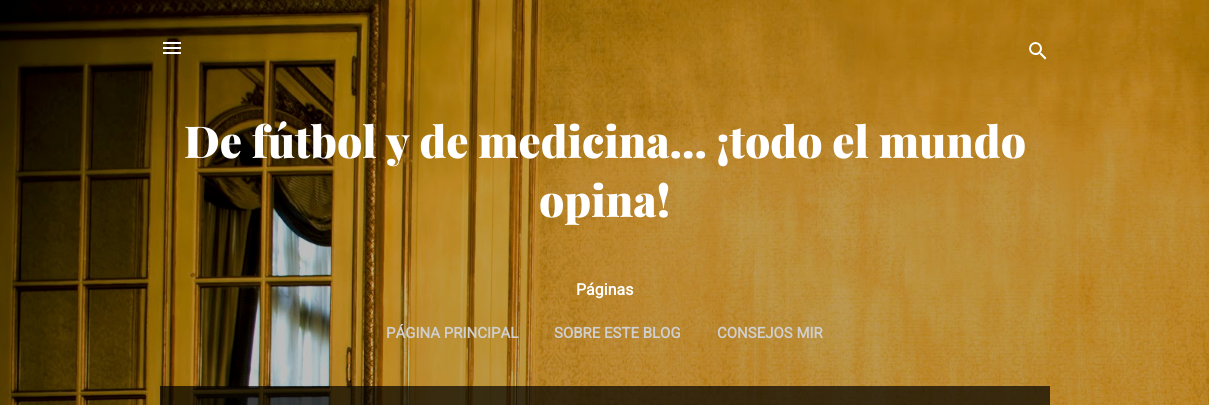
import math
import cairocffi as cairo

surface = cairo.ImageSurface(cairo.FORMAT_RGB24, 1209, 405)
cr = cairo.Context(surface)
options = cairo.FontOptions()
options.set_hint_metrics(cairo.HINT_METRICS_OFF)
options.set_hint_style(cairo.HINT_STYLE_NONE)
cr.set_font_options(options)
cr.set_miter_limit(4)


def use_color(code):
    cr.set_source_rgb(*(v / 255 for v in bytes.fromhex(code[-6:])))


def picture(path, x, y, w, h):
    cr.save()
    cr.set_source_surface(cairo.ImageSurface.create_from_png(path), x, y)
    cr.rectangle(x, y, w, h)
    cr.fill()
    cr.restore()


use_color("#ffffff")
cr.paint()
picture("img1.png", 0, 0, 1209, 405)
picture("img2.png", 163, 42, 18, 12)
picture("img3.png", 1029, 42, 18, 18)
cr.select_font_face("Playfair Display Black")
cr.set_font_size(44)
use_color("#ffffff")
cr.move_to(184, 158)
cr.show_text("De fútbol y de medicina... ¡todo el mundo")
cr.move_to(539, 217)
cr.show_text("opina!")
cr.select_font_face("Roboto", cairo.FONT_SLANT_NORMAL, cairo.FONT_WEIGHT_BOLD)
cr.set_font_size(16)
cr.move_to(576, 295)
cr.show_text("Páginas")
cr.set_font_size(15)
use_color("#cfcfcf")
cr.move_to(386, 338)
cr.show_text("PÁGINA PRINCIPAL")
cr.move_to(554, 338)
cr.show_text("SOBRE ESTE BLOG")
cr.move_to(717, 338)
cr.show_text("CONSEJOS MIR")
cr.set_source_rgba(0, 0, 0, 0.7)
cr.rectangle(160, 386, 890, 19)
cr.fill()
surface.write_to_png("result.png")
